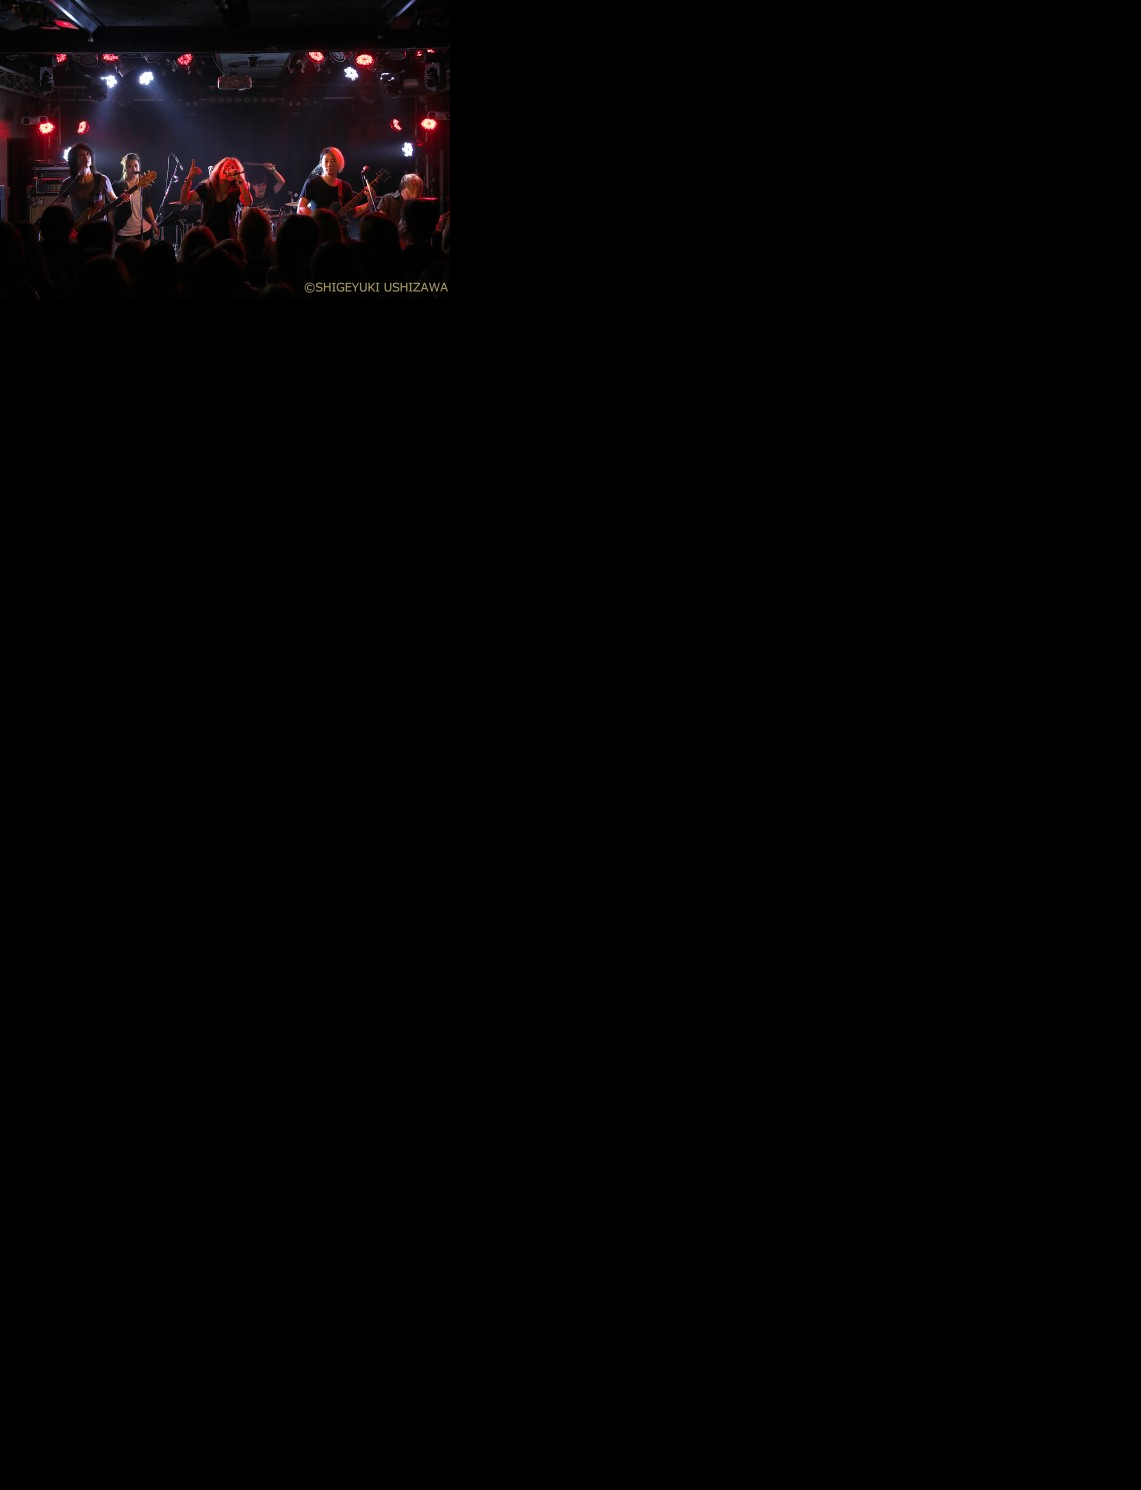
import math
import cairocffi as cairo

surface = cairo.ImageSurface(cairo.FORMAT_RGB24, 1141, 1490)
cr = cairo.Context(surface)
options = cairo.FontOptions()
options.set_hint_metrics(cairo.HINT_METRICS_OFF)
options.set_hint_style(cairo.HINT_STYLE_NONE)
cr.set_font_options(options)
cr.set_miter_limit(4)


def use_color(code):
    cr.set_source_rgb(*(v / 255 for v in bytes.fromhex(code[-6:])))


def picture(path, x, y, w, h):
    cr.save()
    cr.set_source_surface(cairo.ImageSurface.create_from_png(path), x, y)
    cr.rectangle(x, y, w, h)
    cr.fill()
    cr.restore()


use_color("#000000")
cr.paint()
picture("img1.png", 0, 0, 450, 300)
surface.write_to_png("result.png")
